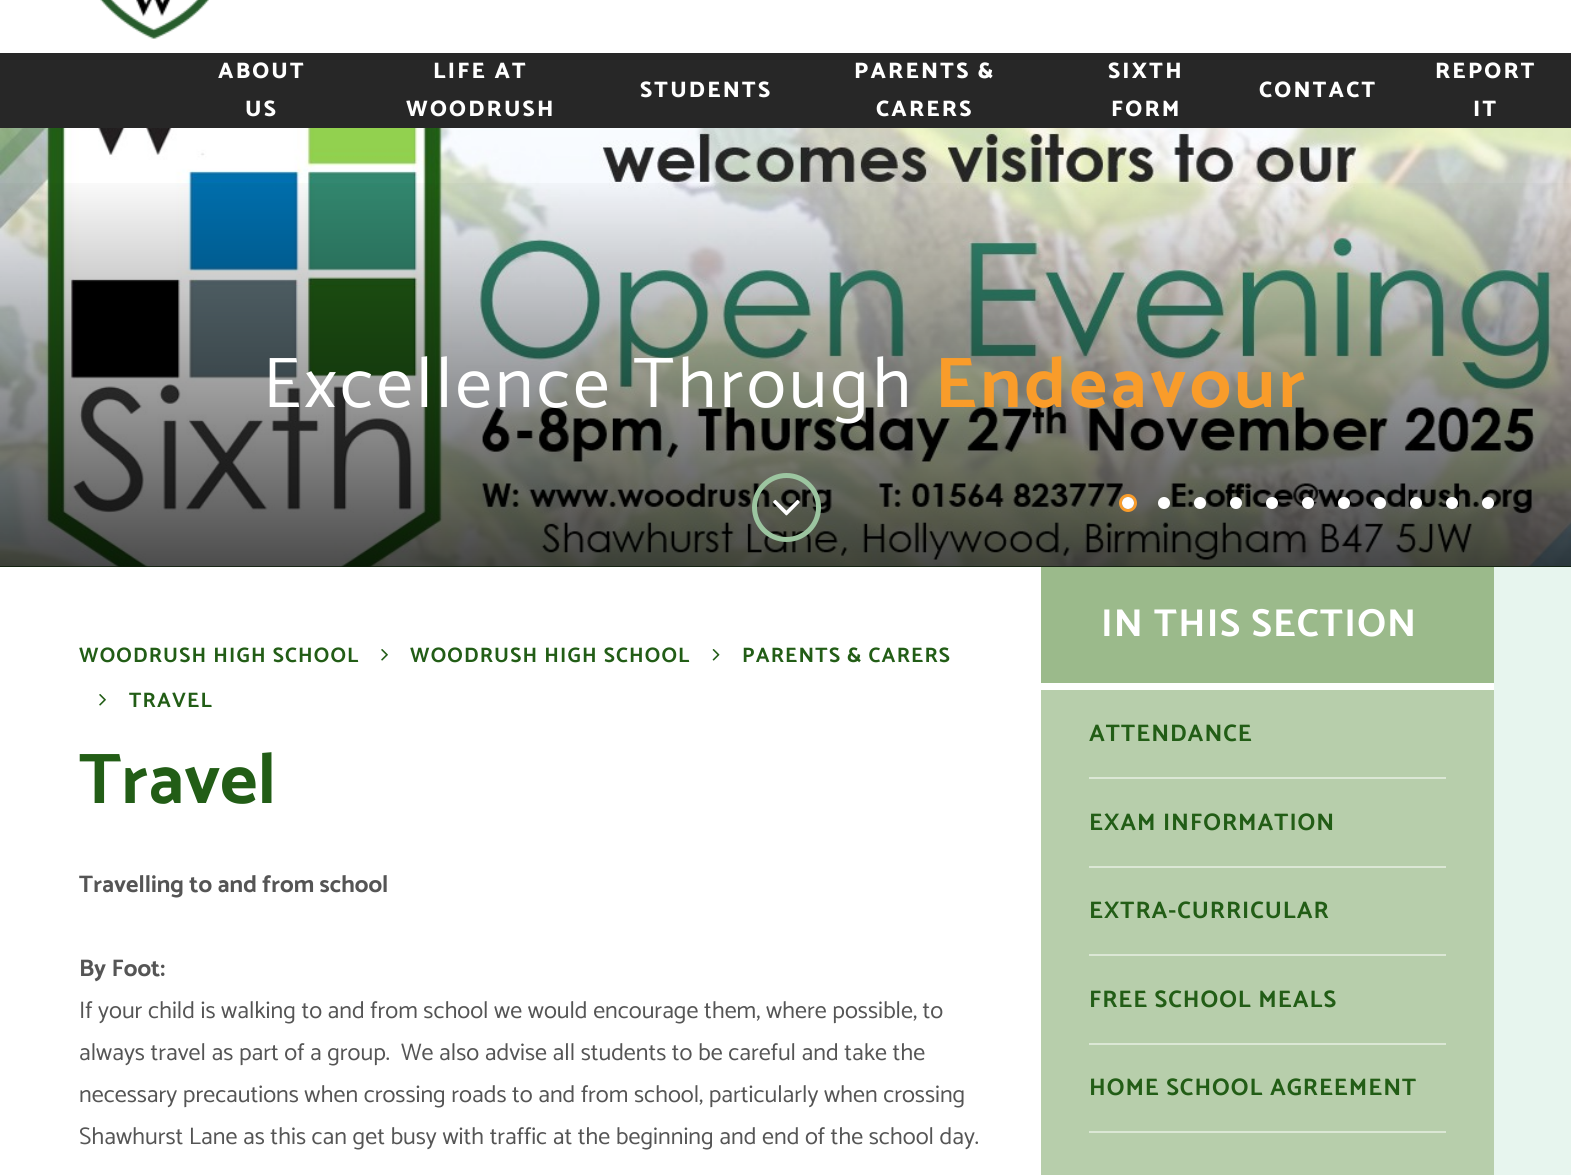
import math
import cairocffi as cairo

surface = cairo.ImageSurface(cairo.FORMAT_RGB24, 1571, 1175)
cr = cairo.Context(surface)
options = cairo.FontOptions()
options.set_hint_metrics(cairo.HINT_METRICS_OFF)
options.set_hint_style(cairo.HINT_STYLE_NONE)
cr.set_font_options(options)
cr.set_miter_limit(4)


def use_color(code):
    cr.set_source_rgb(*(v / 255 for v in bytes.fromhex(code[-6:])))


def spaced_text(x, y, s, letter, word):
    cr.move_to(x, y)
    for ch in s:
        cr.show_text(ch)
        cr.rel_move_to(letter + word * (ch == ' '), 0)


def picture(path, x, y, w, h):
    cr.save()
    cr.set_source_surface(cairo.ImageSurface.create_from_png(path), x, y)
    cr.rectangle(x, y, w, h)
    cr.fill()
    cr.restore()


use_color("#ffffff")
cr.paint()
picture("img1.png", 100, 0, 109, 39)
use_color("#272727")
cr.rectangle(0, 53, 1571, 75)
cr.fill()
cr.select_font_face("Catamaran ExtraBold")
cr.set_font_size(22.5)
use_color("#ffffff")
spaced_text(218, 78, "ABOUT", 2.25, 0)
spaced_text(245, 116, "US", 2.25, 0)
spaced_text(433, 78, "LIFE AT", 2.25, 0)
spaced_text(406, 116, "WOODRUSH", 2.25, 0)
spaced_text(640, 97, "STUDENTS", 2.25, 0)
spaced_text(854, 78, "PARENTS &", 2.25, 0)
spaced_text(876, 116, "CARERS", 2.25, 0)
spaced_text(1108, 78, "SIXTH", 2.25, 0)
spaced_text(1111, 116, "FORM", 2.25, 0)
spaced_text(1259, 97, "CONTACT", 2.25, 0)
spaced_text(1435, 78, "REPORT", 2.25, 0)
spaced_text(1473, 116, "IT", 2.25, 0)
use_color("#225d16")
cr.rectangle(0, 566, 1571, 1)
cr.fill()
picture("img2.png", 0, 128, 1571, 439)
gradient = cairo.LinearGradient(786, 171, 786, 567)
gradient.add_color_stop_rgba(0, 0, 0, 0, 0)
gradient.add_color_stop_rgba(1, 0, 0, 0, 0.7)
cr.set_source(gradient)
cr.rectangle(0, 183, 1571, 384)
cr.fill()
cr.select_font_face("Catamaran")
cr.set_font_size(72)
use_color("#ffffff")
spaced_text(263, 407, "Excellence Through", 3.6, 0)
cr.select_font_face("Catamaran", cairo.FONT_SLANT_NORMAL, cairo.FONT_WEIGHT_BOLD)
use_color("#f99c2a")
spaced_text(935, 407, "Endeavour", 3.6, 0)
cr.new_path()
cr.arc(786.5, 507.5, 32, 0, 2 * math.pi)
use_color("#9cc5a0")
cr.set_line_width(5)
cr.stroke()
picture("img3.png", 773, 499, 27, 17)
cr.arc(1128, 503, 7.5, 0, 2 * math.pi)
use_color("#f99c2a")
cr.set_line_width(3)
cr.stroke()
use_color("#ffffff")
cr.arc(1128, 503, 6, 0, 2 * math.pi)
cr.fill()
cr.arc(1164, 503, 6, 0, 2 * math.pi)
cr.fill()
cr.arc(1200, 503, 6, 0, 2 * math.pi)
cr.fill()
cr.arc(1236, 503, 6, 0, 2 * math.pi)
cr.fill()
cr.arc(1272, 503, 6, 0, 2 * math.pi)
cr.fill()
cr.arc(1308, 503, 6, 0, 2 * math.pi)
cr.fill()
cr.arc(1344, 503, 6, 0, 2 * math.pi)
cr.fill()
cr.arc(1380, 503, 6, 0, 2 * math.pi)
cr.fill()
cr.arc(1416, 503, 6, 0, 2 * math.pi)
cr.fill()
cr.arc(1452, 503, 6, 0, 2 * math.pi)
cr.fill()
cr.arc(1488, 503, 6, 0, 2 * math.pi)
cr.fill()
cr.set_font_size(21)
use_color("#225d16")
spaced_text(79, 662, "WOODRUSH HIGH SCHOOL", 1.2, 0)
picture("img4.png", 381, 649, 7, 12)
spaced_text(410, 662, "WOODRUSH HIGH SCHOOL", 1.2, 0)
picture("img5.png", 712, 649, 8, 12)
spaced_text(742, 662, "PARENTS & CARERS", 1.2, 0)
picture("img4.png", 99, 694, 7, 12)
spaced_text(129, 707, "TRAVEL", 1.2, 0)
cr.set_font_size(72)
cr.move_to(79, 803)
cr.show_text("Travel")
cr.set_font_size(24)
use_color("#555555")
cr.move_to(79, 892)
cr.show_text("Travelling to and from school")
cr.move_to(79, 976)
cr.show_text("By Foot:")
cr.select_font_face("Catamaran")
cr.move_to(79, 1018)
cr.show_text("If your child is walking to and from school we would encourage them, where possible, to")
cr.move_to(79, 1060)
cr.show_text("always travel as part of a group.  We also advise all students to be careful and take the")
cr.move_to(79, 1102)
cr.show_text("necessary precautions when crossing roads to and from school, particularly when crossing")
cr.move_to(79, 1144)
cr.show_text("Shawhurst Lane as this can get busy with traffic at the beginning and end of the school day.")
use_color("#9bba8b")
cr.rectangle(1041, 567, 453, 116)
cr.fill()
cr.select_font_face("Catamaran", cairo.FONT_SLANT_NORMAL, cairo.FONT_WEIGHT_BOLD)
cr.set_font_size(39)
use_color("#ffffff")
spaced_text(1101, 636, "IN THIS SECTION", 1.2, 0)
use_color("#b7ceab")
cr.rectangle(1041, 690, 453, 485)
cr.fill()
cr.set_font_size(24)
use_color("#225d16")
spaced_text(1089, 741, "ATTENDANCE", 1, 0)
use_color("#dbe7d5")
cr.rectangle(1089, 777, 357, 2)
cr.fill()
use_color("#225d16")
spaced_text(1089, 830, "EXAM INFORMATION", 1, 0)
use_color("#dbe7d5")
cr.rectangle(1089, 866, 357, 2)
cr.fill()
use_color("#225d16")
spaced_text(1089, 918, "EXTRA-CURRICULAR", 1, 0)
use_color("#dbe7d5")
cr.rectangle(1089, 954, 357, 2)
cr.fill()
use_color("#225d16")
spaced_text(1089, 1007, "FREE SCHOOL MEALS", 1, 0)
use_color("#dbe7d5")
cr.rectangle(1089, 1043, 357, 2)
cr.fill()
use_color("#225d16")
spaced_text(1089, 1095, "HOME SCHOOL AGREEMENT", 1, 0)
use_color("#dbe7d5")
cr.rectangle(1089, 1131, 357, 2)
cr.fill()
use_color("#e7f5ee")
cr.rectangle(1494, 567, 77, 608)
cr.fill()
surface.write_to_png("result.png")
